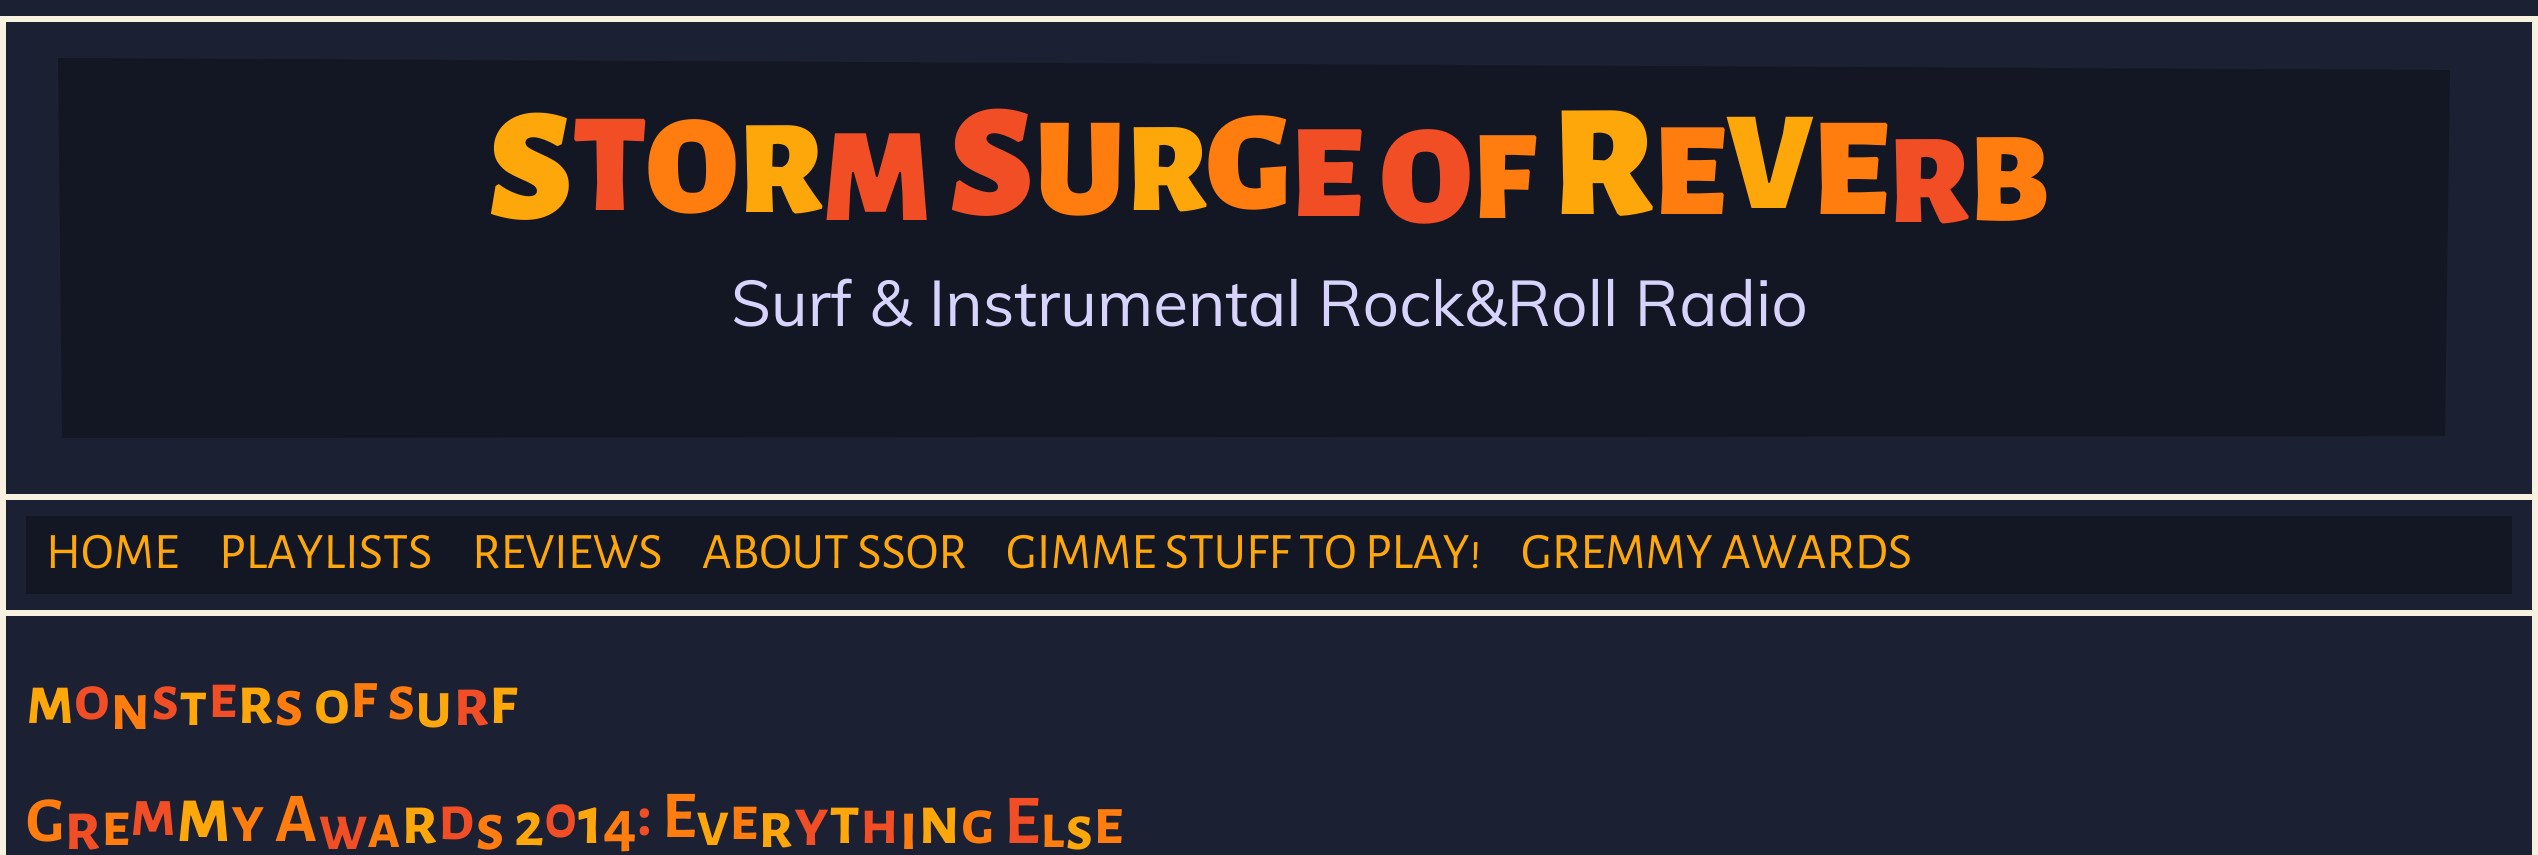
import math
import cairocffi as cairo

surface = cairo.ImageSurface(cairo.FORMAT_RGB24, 2538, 855)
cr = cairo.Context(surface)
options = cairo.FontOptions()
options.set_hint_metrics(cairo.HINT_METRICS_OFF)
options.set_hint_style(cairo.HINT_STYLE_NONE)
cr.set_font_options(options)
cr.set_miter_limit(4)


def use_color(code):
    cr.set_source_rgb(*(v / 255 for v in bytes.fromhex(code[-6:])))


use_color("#1b2032")
cr.paint()
use_color("#f6f2df")
cr.rectangle(0, 16, 2538, 6)
cr.fill()
cr.rectangle(2532, 16, 6, 478)
cr.fill()
cr.rectangle(0, 16, 6, 478)
cr.fill()
use_color("#131623")
cr.new_path()
cr.move_to(58, 58)
cr.line_to(62, 438)
cr.line_to(2445, 436)
cr.line_to(2450, 70)
cr.close_path()
cr.fill()
cr.select_font_face("Alegreya Sans SC Black")
cr.set_font_size(160)
use_color("#fea70a")
cr.move_to(488, 218)
cr.show_text("S")
cr.set_font_size(141)
use_color("#f14e26")
cr.move_to(573, 210)
cr.show_text("T")
use_color("#ff7c0f")
cr.move_to(646, 212)
cr.show_text("O")
cr.set_font_size(134)
use_color("#fea70a")
cr.move_to(738, 212)
cr.show_text("R")
use_color("#f14e26")
cr.move_to(823, 220)
cr.show_text("M")
cr.set_font_size(160)
cr.move_to(949, 214)
cr.show_text("S")
cr.set_font_size(141)
use_color("#ff7c0f")
cr.move_to(1034, 214)
cr.show_text("U")
cr.set_font_size(128)
use_color("#fea70a")
cr.move_to(1126, 210)
cr.show_text("R")
cr.set_font_size(141)
use_color("#ff7c0f")
cr.move_to(1206, 208)
cr.show_text("G")
cr.set_font_size(134)
use_color("#f14e26")
cr.move_to(1290, 216)
cr.show_text("E")
cr.set_font_size(141)
cr.move_to(1380, 222)
cr.show_text("O")
cr.set_font_size(128)
use_color("#ff7c0f")
cr.move_to(1472, 218)
cr.show_text("F")
cr.set_font_size(160)
use_color("#fea70a")
cr.move_to(1552, 214)
cr.show_text("R")
cr.set_font_size(134)
use_color("#ff7c0f")
cr.move_to(1653, 214)
cr.show_text("E")
cr.set_font_size(141)
use_color("#fea70a")
cr.move_to(1726, 208)
cr.show_text("V")
use_color("#ff7c0f")
cr.move_to(1812, 214)
cr.show_text("E")
cr.set_font_size(128)
use_color("#f14e26")
cr.move_to(1888, 222)
cr.show_text("R")
use_color("#ff7c0f")
cr.move_to(1969, 220)
cr.show_text("B")
cr.select_font_face("Muli")
cr.set_font_size(64)
use_color("#d6d4fc")
cr.move_to(731, 326)
cr.show_text("Surf & Instrumental Rock&Roll Radio")
use_color("#f6f2df")
cr.rectangle(0, 494, 2538, 6)
cr.fill()
cr.rectangle(2532, 494, 6, 116)
cr.fill()
cr.rectangle(0, 494, 6, 116)
cr.fill()
use_color("#131623")
cr.rectangle(26, 516, 2486, 78)
cr.fill()
cr.select_font_face("Alegreya Sans SC")
cr.set_font_size(51.25)
use_color("#fea70a")
cr.move_to(46, 568)
cr.show_text("HOME")
cr.move_to(219, 568)
cr.show_text("PLAYLISTS")
cr.move_to(472, 568)
cr.show_text("REVIEWS")
cr.move_to(702, 568)
cr.show_text("ABOUT SSOR")
cr.move_to(1006, 568)
cr.show_text("GIMME STUFF TO PLAY!")
cr.move_to(1521, 568)
cr.show_text("GREMMY AWARDS")
cr.rectangle(3, 613, 2532, 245)
use_color("#f6f2df")
cr.set_line_width(6)
cr.stroke()
cr.select_font_face("Alegreya Sans SC", cairo.FONT_SLANT_NORMAL, cairo.FONT_WEIGHT_BOLD)
cr.set_font_size(70)
use_color("#fea70a")
cr.move_to(26, 723)
cr.show_text("m")
cr.set_font_size(64)
use_color("#f14e26")
cr.move_to(74, 719)
cr.show_text("o")
cr.set_font_size(67)
use_color("#ff7c0f")
cr.move_to(110, 729)
cr.show_text("n")
cr.set_font_size(64)
use_color("#f14e26")
cr.move_to(151, 719)
cr.show_text("s")
use_color("#fea70a")
cr.move_to(179, 725)
cr.show_text("t")
use_color("#f14e26")
cr.move_to(208, 717)
cr.show_text("e")
cr.set_font_size(70)
use_color("#fea70a")
cr.move_to(237, 723)
cr.show_text("r")
cr.set_font_size(67)
use_color("#ff7c0f")
cr.move_to(274, 725)
cr.show_text("s")
cr.set_font_size(64)
use_color("#fea70a")
cr.move_to(314, 723)
cr.show_text("o")
cr.set_font_size(67)
use_color("#ff7c0f")
cr.move_to(350, 717)
cr.show_text("f")
cr.set_font_size(64)
cr.move_to(387, 719)
cr.show_text("s")
cr.set_font_size(67)
use_color("#fea70a")
cr.move_to(415, 727)
cr.show_text("u")
cr.set_font_size(70)
use_color("#f14e26")
cr.move_to(453, 725)
cr.show_text("r")
use_color("#fea70a")
cr.move_to(489, 723)
cr.show_text("f")
cr.set_font_size(64)
use_color("#ff7c0f")
cr.move_to(26, 841)
cr.show_text("G")
cr.set_font_size(70)
use_color("#f14e26")
cr.move_to(64, 849)
cr.show_text("r")
cr.set_font_size(64)
use_color("#ff7c0f")
cr.move_to(101, 845)
cr.show_text("e")
cr.set_font_size(67)
use_color("#f14e26")
cr.move_to(130, 835)
cr.show_text("m")
cr.set_font_size(80)
use_color("#fea70a")
cr.move_to(176, 841)
cr.show_text("m")
cr.set_font_size(67)
use_color("#ff7c0f")
cr.move_to(231, 841)
cr.show_text("y")
cr.set_font_size(70)
cr.move_to(275, 841)
cr.show_text("A")
cr.set_font_size(64)
use_color("#f14e26")
cr.move_to(318, 849)
cr.show_text("w")
use_color("#ff7c0f")
cr.move_to(367, 847)
cr.show_text("a")
cr.set_font_size(70)
use_color("#fea70a")
cr.move_to(401, 843)
cr.show_text("r")
cr.set_font_size(64)
use_color("#f14e26")
cr.move_to(438, 839)
cr.show_text("d")
cr.set_font_size(67)
use_color("#ff7c0f")
cr.move_to(475, 849)
cr.show_text("s")
cr.set_font_size(64)
use_color("#fea70a")
cr.move_to(514, 845)
cr.show_text("2")
use_color("#f14e26")
cr.move_to(544, 837)
cr.show_text("0")
cr.set_font_size(70)
use_color("#fea70a")
cr.move_to(578, 843)
cr.show_text("1")
cr.set_font_size(67)
use_color("#ff7c0f")
cr.move_to(603, 845)
cr.show_text("4")
use_color("#f14e26")
cr.move_to(637, 835)
cr.show_text(":")
use_color("#ff7c0f")
cr.move_to(662, 837)
cr.show_text("E")
cr.set_font_size(64)
use_color("#fea70a")
cr.move_to(696, 845)
cr.show_text("v")
use_color("#ff7c0f")
cr.move_to(729, 839)
cr.show_text("e")
cr.set_font_size(67)
use_color("#fea70a")
cr.move_to(758, 847)
cr.show_text("r")
cr.set_font_size(70)
use_color("#f14e26")
cr.move_to(794, 845)
cr.show_text("y")
use_color("#fea70a")
cr.move_to(829, 843)
cr.show_text("t")
cr.set_font_size(64)
use_color("#f14e26")
cr.move_to(860, 843)
cr.show_text("h")
cr.set_font_size(70)
use_color("#ff7c0f")
cr.move_to(899, 849)
cr.show_text("i")
use_color("#fea70a")
cr.move_to(918, 843)
cr.show_text("n")
cr.set_font_size(64)
use_color("#ff7c0f")
cr.move_to(961, 843)
cr.show_text("g")
cr.set_font_size(70)
use_color("#f14e26")
cr.move_to(1004, 843)
cr.show_text("E")
cr.set_font_size(64)
use_color("#ff7c0f")
cr.move_to(1040, 847)
cr.show_text("l")
use_color("#fea70a")
cr.move_to(1065, 849)
cr.show_text("s")
cr.set_font_size(67)
use_color("#ff7c0f")
cr.move_to(1093, 843)
cr.show_text("e")
surface.write_to_png("result.png")
